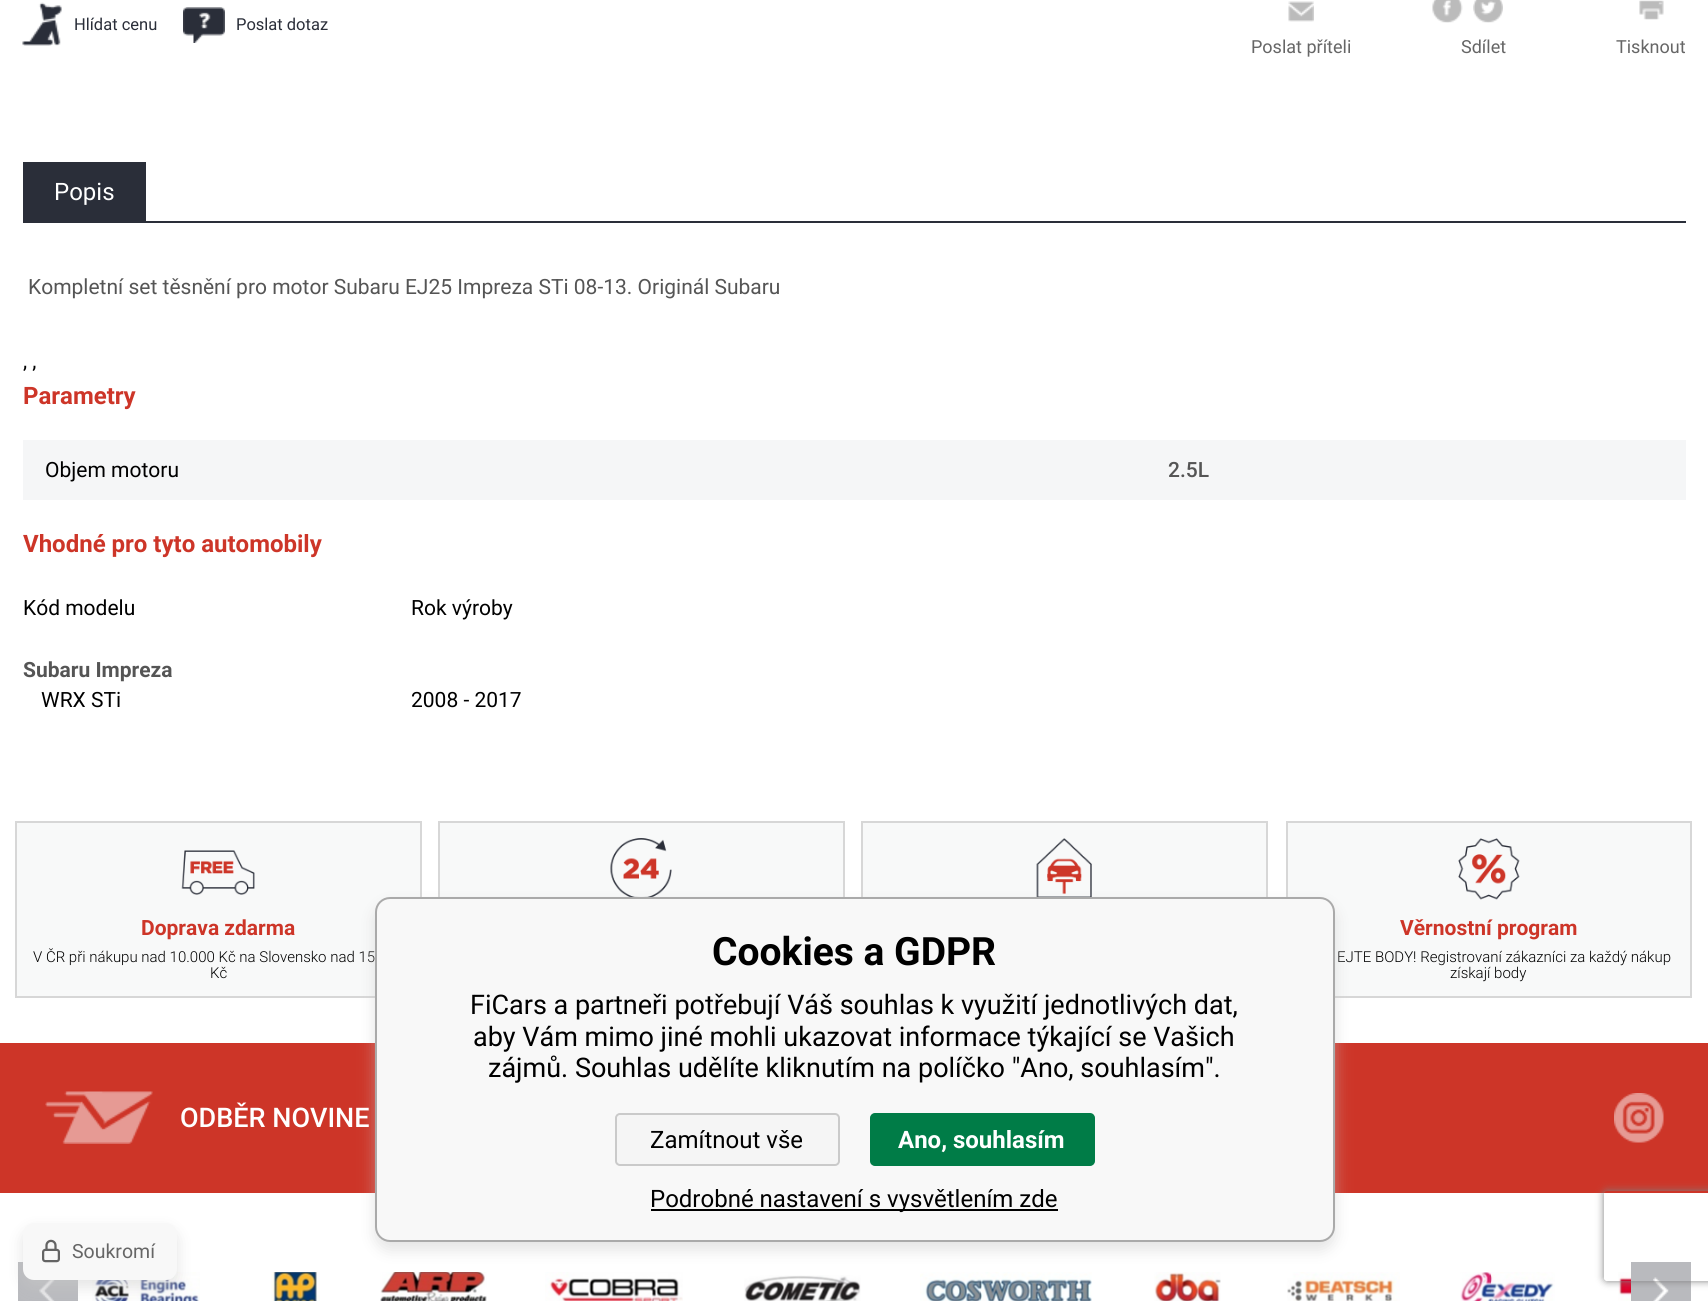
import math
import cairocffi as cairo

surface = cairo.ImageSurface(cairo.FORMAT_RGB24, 1708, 1301)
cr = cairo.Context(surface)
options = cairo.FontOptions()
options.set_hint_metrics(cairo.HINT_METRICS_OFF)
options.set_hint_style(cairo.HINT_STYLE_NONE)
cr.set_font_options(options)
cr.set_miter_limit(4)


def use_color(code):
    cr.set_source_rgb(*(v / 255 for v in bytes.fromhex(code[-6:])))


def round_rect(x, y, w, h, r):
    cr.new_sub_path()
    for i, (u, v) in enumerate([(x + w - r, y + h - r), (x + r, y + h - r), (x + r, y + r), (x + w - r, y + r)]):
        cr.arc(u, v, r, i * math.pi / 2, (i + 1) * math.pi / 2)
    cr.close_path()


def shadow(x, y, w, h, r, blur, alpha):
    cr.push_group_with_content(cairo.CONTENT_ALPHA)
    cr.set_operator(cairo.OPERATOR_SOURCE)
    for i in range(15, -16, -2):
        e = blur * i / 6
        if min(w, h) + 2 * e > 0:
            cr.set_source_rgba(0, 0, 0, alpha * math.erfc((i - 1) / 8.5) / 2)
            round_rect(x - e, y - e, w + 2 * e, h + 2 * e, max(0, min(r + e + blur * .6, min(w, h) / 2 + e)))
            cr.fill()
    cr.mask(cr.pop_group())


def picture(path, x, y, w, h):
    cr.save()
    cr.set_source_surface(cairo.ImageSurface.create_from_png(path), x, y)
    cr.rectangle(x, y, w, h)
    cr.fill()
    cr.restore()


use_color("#ffffff")
cr.paint()
picture("img1.png", 22, 2, 40, 44)
cr.select_font_face("Roboto")
cr.set_font_size(16.5)
use_color("#2a2e39")
cr.move_to(74, 30)
cr.show_text("Hlídat cenu")
picture("img2.png", 183, 7, 42, 36)
cr.move_to(236, 30)
cr.show_text("Poslat dotaz")
picture("img3.png", 1288, 1, 26, 21)
cr.set_font_size(18)
use_color("#666666")
cr.move_to(1251, 53)
cr.show_text("Poslat příteli")
picture("img4.png", 1432, 0, 31, 23)
picture("img5.png", 1473, 0, 30, 23)
cr.move_to(1461, 53)
cr.show_text("Sdílet")
picture("img6.png", 1639, 0, 25, 20)
cr.move_to(1616, 53)
cr.show_text("Tisknout")
use_color("#2a2e39")
cr.rectangle(23, 221, 1663, 2)
cr.fill()
cr.rectangle(23, 162, 123, 59)
cr.fill()
cr.set_font_size(24)
use_color("#ffffff")
cr.move_to(54, 200)
cr.show_text("Popis")
cr.set_font_size(21)
use_color("#555555")
cr.move_to(28, 294)
cr.show_text("Kompletní set těsnění pro motor Subaru EJ25 Impreza STi 08-13. Originál Subaru")
use_color("#000000")
cr.move_to(23, 368)
cr.show_text(", ,")
cr.select_font_face("Roboto", cairo.FONT_SLANT_NORMAL, cairo.FONT_WEIGHT_BOLD)
cr.set_font_size(24)
use_color("#cd3528")
cr.move_to(23, 404)
cr.show_text("Parametry")
use_color("#f5f6f7")
cr.rectangle(23, 440, 1663, 60)
cr.fill()
cr.select_font_face("Roboto")
cr.set_font_size(21)
use_color("#000000")
cr.move_to(45, 477)
cr.show_text("Objem motoru")
cr.select_font_face("Roboto Medium")
use_color("#555555")
cr.move_to(1168, 477)
cr.show_text("2.5L")
cr.select_font_face("Roboto", cairo.FONT_SLANT_NORMAL, cairo.FONT_WEIGHT_BOLD)
cr.set_font_size(24)
use_color("#cd3528")
cr.move_to(23, 552)
cr.show_text("Vhodné pro tyto automobily")
cr.select_font_face("Roboto")
cr.set_font_size(21)
use_color("#000000")
cr.move_to(23, 615)
cr.show_text("Kód modelu")
cr.move_to(411, 615)
cr.show_text("Rok výroby")
cr.select_font_face("Roboto", cairo.FONT_SLANT_NORMAL, cairo.FONT_WEIGHT_BOLD)
use_color("#555555")
cr.move_to(23, 677)
cr.show_text("Subaru Impreza")
cr.select_font_face("Roboto")
use_color("#000000")
cr.move_to(41, 707)
cr.show_text("WRX STi")
cr.move_to(411, 707)
cr.show_text("2008 - 2017")
use_color("#f8f9f9")
cr.rectangle(16, 822, 405, 175)
cr.fill_preserve()
use_color("#d7d7d7")
cr.stroke()
picture("img7.png", 181, 850, 74, 45)
cr.select_font_face("Roboto", cairo.FONT_SLANT_NORMAL, cairo.FONT_WEIGHT_BOLD)
use_color("#cd3528")
cr.move_to(141, 935)
cr.show_text("Doprava zdarma")
cr.select_font_face("Roboto Light")
cr.set_font_size(15)
use_color("#000000")
cr.move_to(33, 962)
cr.show_text("V ČR při nákupu nad 10.000 Kč na Slovensko nad 15")
cr.move_to(210, 978)
cr.show_text("Kč")
use_color("#f8f9f9")
cr.rectangle(440, 823, 403, 74)
cr.fill()
cr.rectangle(439, 822, 405, 175)
use_color("#d7d7d7")
cr.stroke()
picture("img8.png", 610, 838, 62, 59)
use_color("#f8f9f9")
cr.rectangle(863, 823, 403, 74)
cr.fill()
cr.rectangle(862, 822, 405, 175)
use_color("#d7d7d7")
cr.stroke()
picture("img9.png", 1036, 838, 56, 59)
use_color("#f8f9f9")
cr.rectangle(1287, 822, 404, 175)
cr.fill_preserve()
use_color("#d7d7d7")
cr.stroke()
picture("img10.png", 1458, 838, 62, 62)
cr.select_font_face("Roboto", cairo.FONT_SLANT_NORMAL, cairo.FONT_WEIGHT_BOLD)
cr.set_font_size(21)
use_color("#cd3528")
cr.move_to(1400, 935)
cr.show_text("Věrnostní program")
cr.select_font_face("Roboto Light")
cr.set_font_size(15)
use_color("#000000")
cr.move_to(1337, 962)
cr.show_text("EJTE BODY! Registrovaní zákazníci za každý nákup")
cr.move_to(1450, 978)
cr.show_text("získají body")
use_color("#cd3528")
cr.rectangle(0, 1043, 1708, 150)
cr.fill()
picture("img17.png", 380, 1272, 107, 29)
picture("img18.png", 545, 1272, 138, 29)
picture("img20.png", 920, 1272, 172, 29)
picture("img21.png", 1154, 1272, 67, 29)
picture("img22.png", 1287, 1272, 113, 29)
use_color("#c8c8c8")
shadow(375, 905, 960, 345, 15, 7.5, 0.5)
use_color("#f8f8f8")
round_rect(376, 898, 958, 343, 14)
cr.fill_preserve()
use_color("#aaaaaa")
cr.stroke()
cr.select_font_face("Roboto", cairo.FONT_SLANT_NORMAL, cairo.FONT_WEIGHT_BOLD)
cr.set_font_size(39)
use_color("#000000")
cr.move_to(712, 965)
cr.show_text("Cookies a GDPR")
cr.select_font_face("Roboto")
cr.set_font_size(27)
cr.move_to(470, 1014)
cr.show_text("FiCars a partneři potřebují Váš souhlas k využití jednotlivých dat,")
cr.move_to(473, 1046)
cr.show_text("aby Vám mimo jiné mohli ukazovat informace týkající se Vašich")
cr.move_to(488, 1077)
cr.show_text("zájmů. Souhlas udělíte kliknutím na políčko \"Ano, souhlasím\".")
use_color("#f5f5f5")
round_rect(616, 1114, 223, 51, 4)
cr.fill_preserve()
use_color("#cacaca")
cr.stroke()
cr.set_font_size(24)
use_color("#000000")
cr.move_to(650, 1148)
cr.show_text("Zamítnout vše")
use_color("#007c47")
round_rect(871, 1114, 223, 51, 4)
cr.fill_preserve()
cr.stroke()
cr.select_font_face("Roboto", cairo.FONT_SLANT_NORMAL, cairo.FONT_WEIGHT_BOLD)
use_color("#ffffff")
cr.move_to(898, 1148)
cr.show_text("Ano, souhlasím")
use_color("#000000")
cr.rectangle(651, 1209, 407, 2)
cr.fill()
cr.select_font_face("Roboto")
cr.move_to(650, 1207)
cr.show_text("Podrobné nastavení s vysvětlením zde")
use_color("#b9babe")
cr.rectangle(18, 1262, 60, 39)
cr.fill()
picture("img14.png", 39, 1280, 16, 21)
picture("img15.png", 92, 1272, 108, 29)
use_color("#c8c8c8")
shadow(23, 1230, 154, 57, 11, 7.5, 0.5)
use_color("#f8f8f8")
round_rect(23, 1223, 154, 57, 11)
cr.fill()
picture("img11.png", 42, 1239, 18, 24)
cr.set_font_size(19.5)
use_color("#666666")
cr.move_to(72, 1258)
cr.show_text("Soukromí")
picture("img12.png", 45, 1091, 108, 53)
cr.select_font_face("Roboto Medium")
cr.set_font_size(27)
use_color("#ffffff")
cr.move_to(180, 1127)
cr.show_text("ODBĚR NOVINE")
picture("img13.png", 1614, 1093, 50, 50)
picture("img24.png", 1618, 1272, 13, 29)
use_color("#b9babe")
cr.rectangle(1631, 1262, 60, 39)
cr.fill()
picture("img25.png", 1653, 1277, 16, 24)
cr.save()
cr.set_fill_rule(cairo.FILL_RULE_EVEN_ODD)
cr.new_path()
cr.move_to(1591, 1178)
cr.line_to(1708, 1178)
cr.line_to(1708, 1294)
cr.line_to(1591, 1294)
cr.close_path()
cr.move_to(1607, 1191)
cr.line_to(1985, 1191)
cr.curve_to(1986.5, 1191, 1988, 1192.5, 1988, 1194)
cr.line_to(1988, 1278)
cr.curve_to(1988, 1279.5, 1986.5, 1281, 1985, 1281)
cr.line_to(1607, 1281)
cr.curve_to(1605.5, 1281, 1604, 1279.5, 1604, 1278)
cr.line_to(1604, 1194)
cr.curve_to(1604, 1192.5, 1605.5, 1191, 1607, 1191)
cr.close_path()
cr.clip()
use_color("#808080")
shadow(1604, 1191, 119, 90, 3, 4, 1)
cr.restore()
picture("img16.png", 271, 1272, 49, 29)
picture("img19.png", 744, 1275, 117, 26)
picture("img23.png", 1460, 1272, 95, 29)
surface.write_to_png("result.png")
